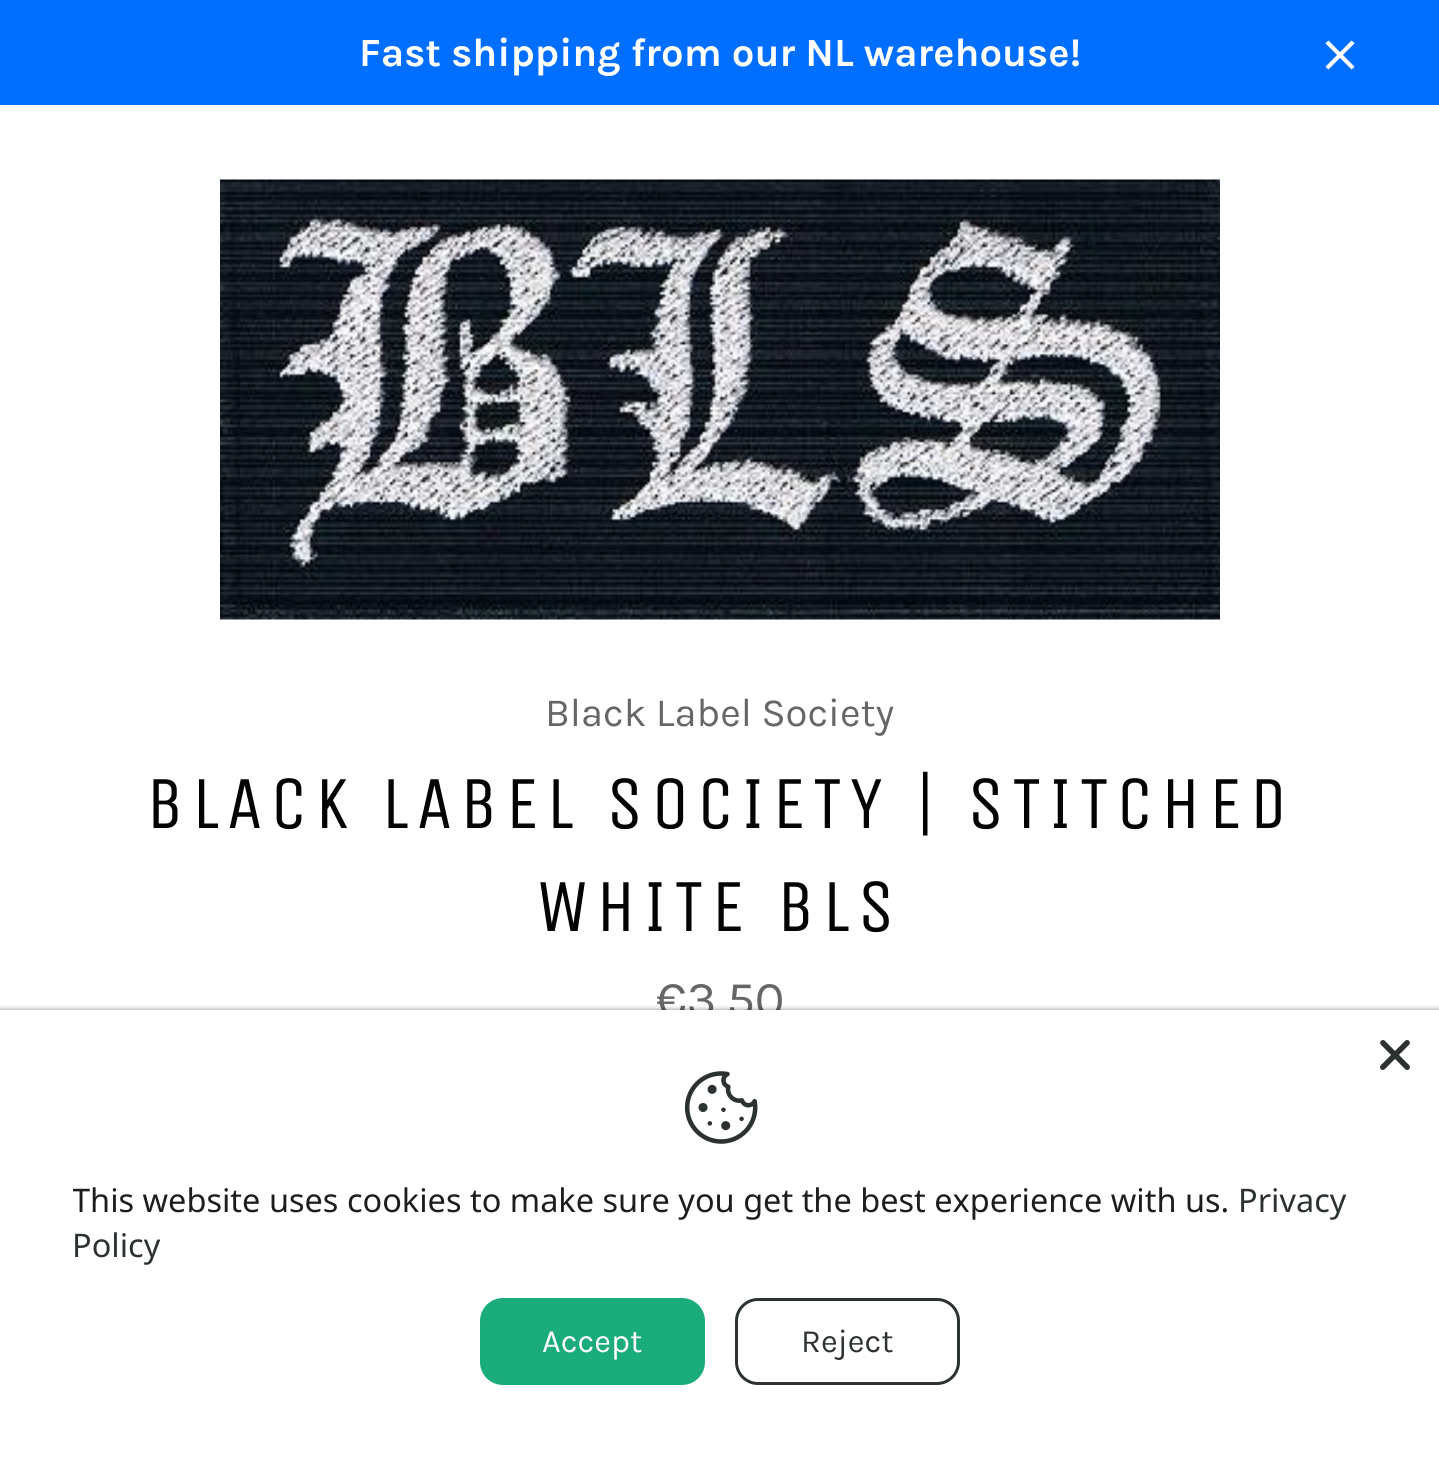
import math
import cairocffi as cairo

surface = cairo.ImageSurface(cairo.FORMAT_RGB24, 1439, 1467)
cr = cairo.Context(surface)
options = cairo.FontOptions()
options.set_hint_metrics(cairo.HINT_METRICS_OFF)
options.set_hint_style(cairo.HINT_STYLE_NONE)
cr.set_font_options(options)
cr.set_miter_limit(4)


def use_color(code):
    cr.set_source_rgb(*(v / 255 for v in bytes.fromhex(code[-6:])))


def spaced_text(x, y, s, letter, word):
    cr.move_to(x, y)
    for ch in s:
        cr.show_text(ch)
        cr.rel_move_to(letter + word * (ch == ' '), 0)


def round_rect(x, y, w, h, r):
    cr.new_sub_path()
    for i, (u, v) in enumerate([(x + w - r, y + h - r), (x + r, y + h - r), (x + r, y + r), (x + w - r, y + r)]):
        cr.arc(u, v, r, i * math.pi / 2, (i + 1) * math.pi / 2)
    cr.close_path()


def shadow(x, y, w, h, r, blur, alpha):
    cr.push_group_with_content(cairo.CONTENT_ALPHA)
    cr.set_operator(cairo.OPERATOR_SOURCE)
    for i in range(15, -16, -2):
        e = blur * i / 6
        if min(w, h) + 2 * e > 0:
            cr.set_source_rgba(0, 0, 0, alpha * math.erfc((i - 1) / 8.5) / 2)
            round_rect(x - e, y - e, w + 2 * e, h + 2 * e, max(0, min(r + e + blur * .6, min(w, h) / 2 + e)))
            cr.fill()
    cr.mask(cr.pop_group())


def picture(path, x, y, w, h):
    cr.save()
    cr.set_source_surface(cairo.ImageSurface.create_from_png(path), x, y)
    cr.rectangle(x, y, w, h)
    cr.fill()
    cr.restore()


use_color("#006eff")
cr.paint()
cr.select_font_face("Karla", cairo.FONT_SLANT_NORMAL, cairo.FONT_WEIGHT_BOLD)
cr.set_font_size(40)
use_color("#ffffff")
cr.move_to(359, 66)
cr.show_text("Fast shipping from our NL warehouse!")
picture("img1.png", 1325, 40, 30, 30)
cr.rectangle(0, 105, 1439, 905)
cr.fill()
picture("img2.png", 220, 179, 1000, 441)
cr.select_font_face("Karla")
use_color("#666666")
cr.move_to(545, 726)
cr.show_text("Black Label Society")
cr.select_font_face("Unica One")
cr.set_font_size(75)
use_color("#030303")
spaced_text(146, 828, "BLACK LABEL SOCIETY | STITCHED", 7.5, 0)
spaced_text(537, 931, "WHITE BLS", 7.5, 0)
cr.select_font_face("Karla")
cr.set_font_size(50)
use_color("#666666")
cr.move_to(656, 1016)
cr.show_text("€3,50")
use_color("#000000")
shadow(0, 1010, 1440, 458, 0, 2.5, 0.5)
use_color("#ffffff")
cr.rectangle(0, 1010, 1439, 457)
cr.fill()
picture("img3.png", 1380, 1040, 30, 30)
picture("img4.png", 684, 1071, 74, 73)
cr.save()
cr.rectangle(73, 1180, 1295, 90)
cr.clip()
cr.select_font_face("Noto Sans")
cr.set_font_size(32.5)
use_color("#1d1d1d")
cr.move_to(72, 1212)
cr.show_text("This website uses cookies to make sure you get the best experience with us.")
cr.restore()
cr.select_font_face("Noto Sans")
cr.set_font_size(32.5)
use_color("#2c332f")
cr.move_to(1238, 1212)
cr.show_text("Privacy")
cr.move_to(72, 1257)
cr.show_text("Policy")
use_color("#1aac7a")
round_rect(480, 1298, 225, 87, 23)
cr.fill()
cr.select_font_face("Karla")
use_color("#ffffff")
cr.move_to(542, 1352)
cr.show_text("Accept")
round_rect(736.5, 1299.5, 222, 84, 21.5)
use_color("#2c332f")
cr.set_line_width(3)
cr.stroke()
cr.move_to(801, 1352)
cr.show_text("Reject")
surface.write_to_png("result.png")
